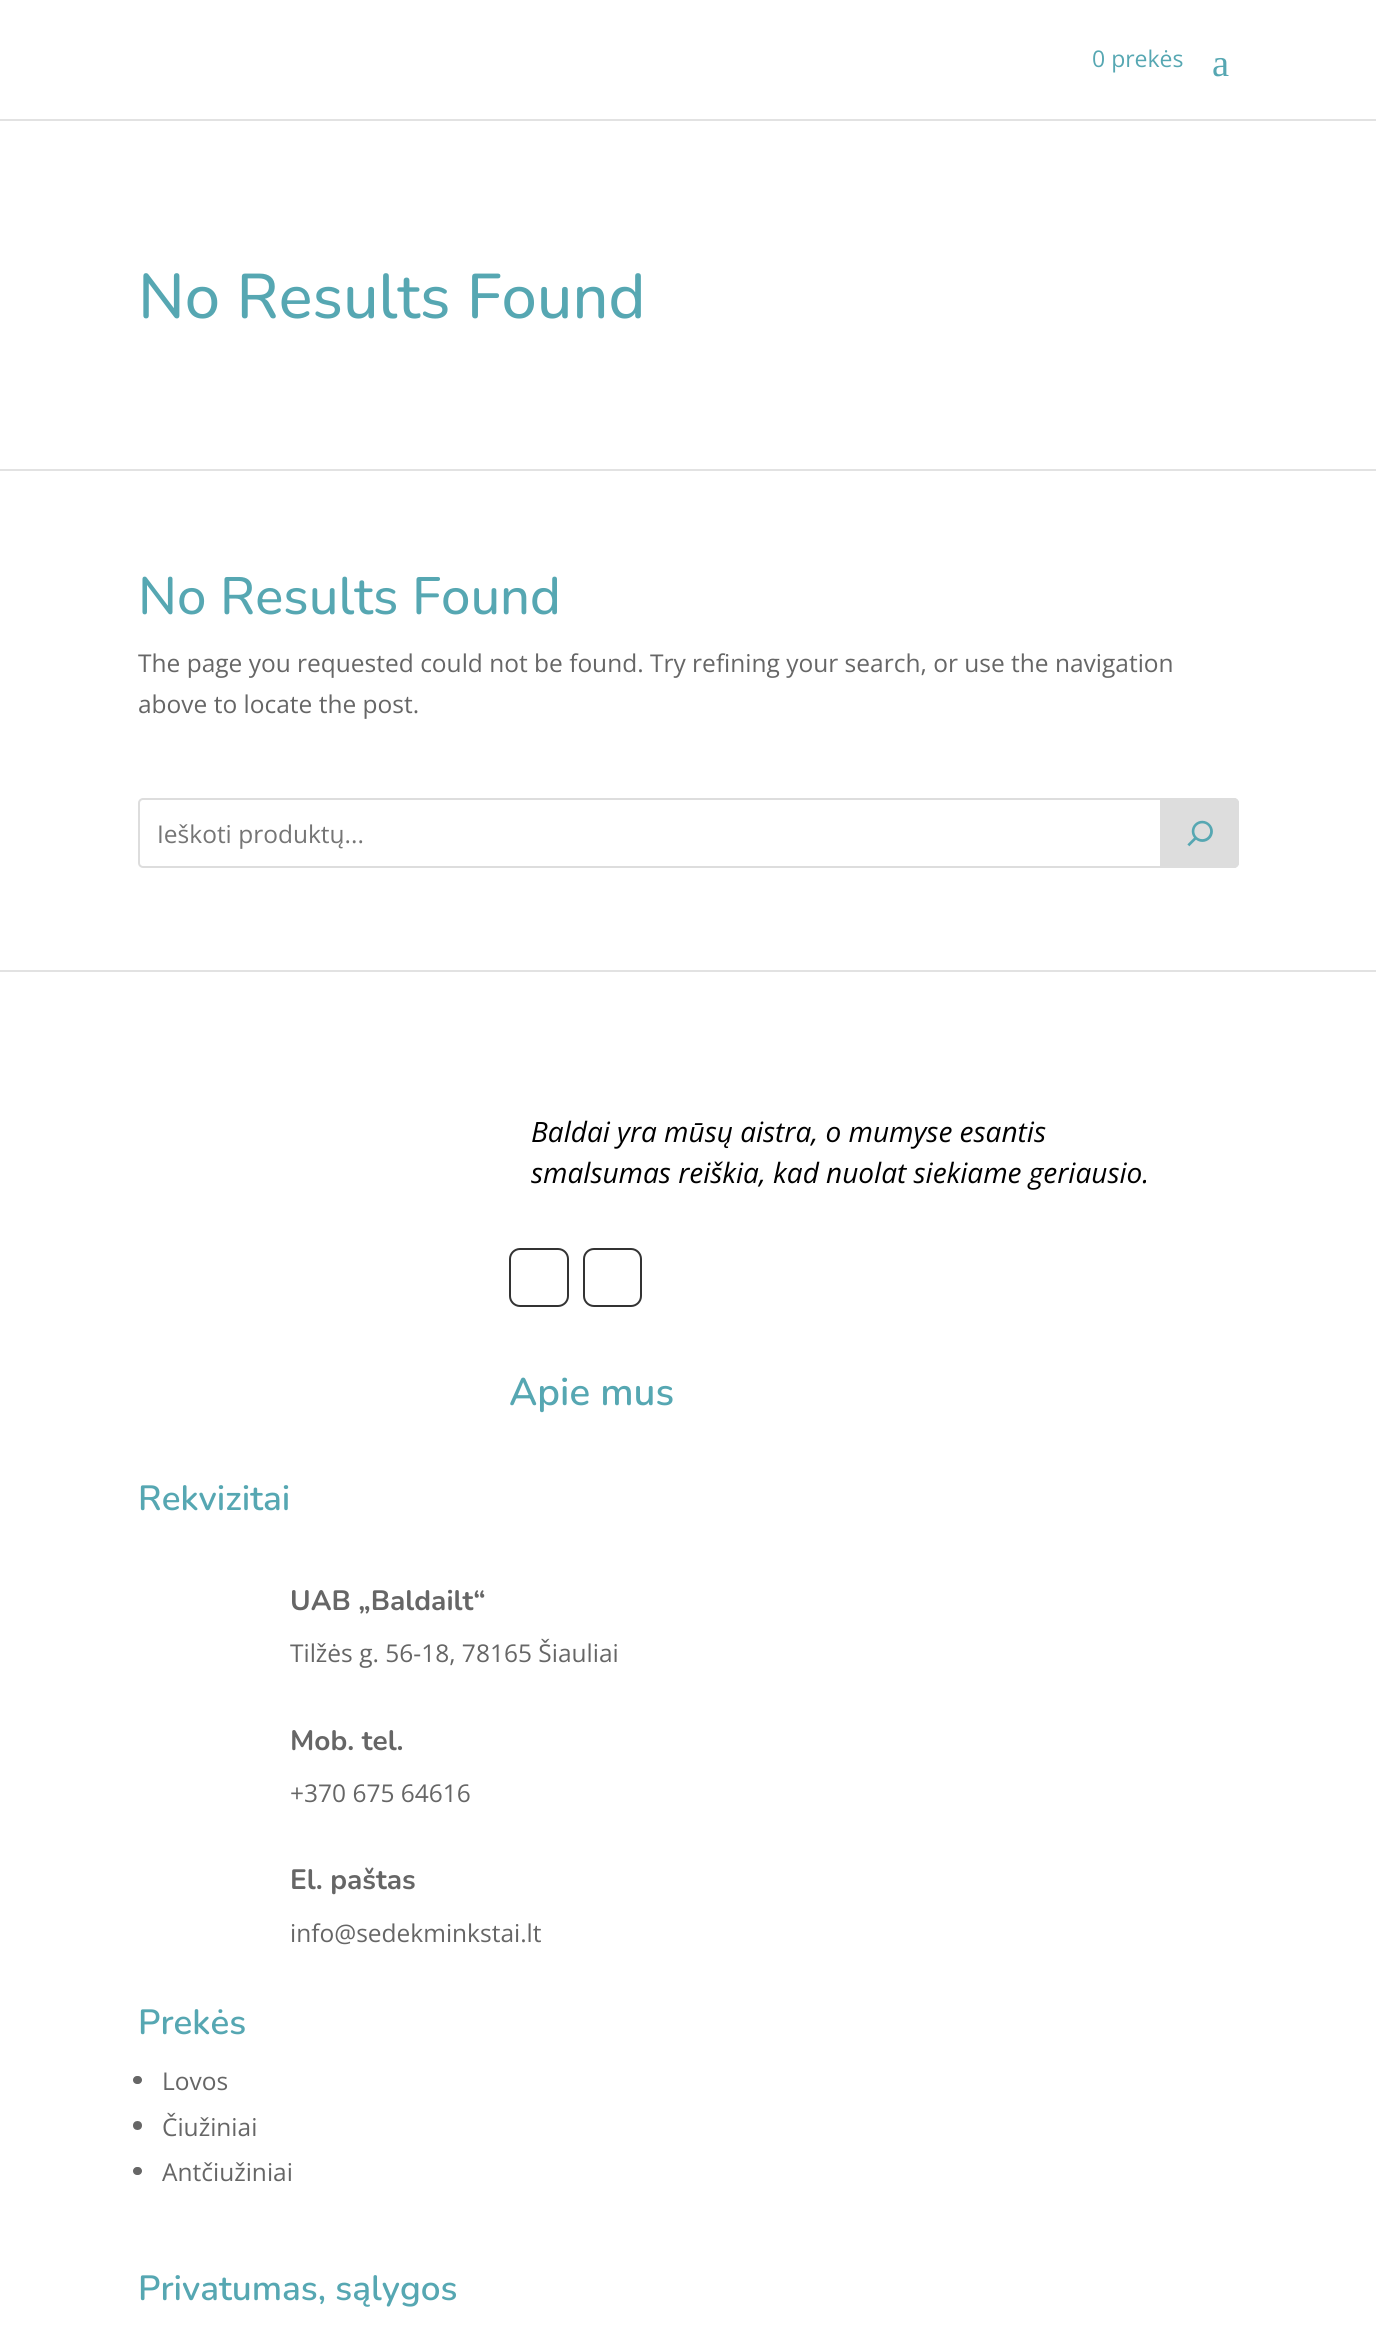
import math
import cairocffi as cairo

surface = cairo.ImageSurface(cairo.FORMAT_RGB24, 1376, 2333)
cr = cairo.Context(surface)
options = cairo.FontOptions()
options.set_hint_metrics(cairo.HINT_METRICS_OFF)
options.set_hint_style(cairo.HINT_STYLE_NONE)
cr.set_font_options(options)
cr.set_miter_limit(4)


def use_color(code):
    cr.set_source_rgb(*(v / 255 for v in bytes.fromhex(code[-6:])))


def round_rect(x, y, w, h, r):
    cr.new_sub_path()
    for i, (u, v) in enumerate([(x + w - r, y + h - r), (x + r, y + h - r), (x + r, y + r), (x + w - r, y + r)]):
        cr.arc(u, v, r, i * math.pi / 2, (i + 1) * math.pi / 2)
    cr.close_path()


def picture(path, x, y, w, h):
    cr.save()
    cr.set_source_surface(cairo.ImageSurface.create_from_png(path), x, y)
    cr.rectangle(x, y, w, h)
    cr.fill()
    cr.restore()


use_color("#ffffff")
cr.paint()
use_color("#e2e2e2")
cr.rectangle(0, 119, 1376, 2)
cr.fill()
cr.select_font_face("Open Sans")
cr.set_font_size(23)
use_color("#56a7b2")
cr.move_to(1092, 67)
cr.show_text("0 prekės")
cr.select_font_face("Liberation Serif")
cr.set_font_size(38.5)
cr.move_to(1212, 76)
cr.show_text("a")
use_color("#e2e2e2")
cr.rectangle(0, 469, 1376, 2)
cr.fill()
cr.select_font_face("Nunito ExtraLight")
cr.set_font_size(63)
use_color("#56a7b2")
cr.move_to(138, 318)
cr.show_text("No Results Found")
cr.set_font_size(52.5)
cr.move_to(138, 614)
cr.show_text("No Results Found")
cr.select_font_face("Open Sans")
cr.set_font_size(24.5)
use_color("#666666")
cr.move_to(138, 672)
cr.show_text("The page you requested could not be found. Try refining your search, or use the navigation")
cr.move_to(138, 713)
cr.show_text("above to locate the post.")
round_rect(139, 799, 1099, 68, 4)
use_color("#dddddd")
cr.stroke()
use_color("#757575")
cr.move_to(157, 843)
cr.show_text("Ieškoti produktų...")
use_color("#dddddd")
cr.new_path()
cr.move_to(1161, 799)
cr.line_to(1234, 799)
cr.curve_to(1236, 799, 1238, 801, 1238, 803)
cr.line_to(1238, 863)
cr.curve_to(1238, 865, 1236, 867, 1234, 867)
cr.line_to(1161, 867)
cr.close_path()
cr.fill_preserve()
cr.stroke()
picture("img1.png", 1187, 820, 26, 27)
use_color("#e2e2e2")
cr.rectangle(0, 970, 1376, 2)
cr.fill()
cr.select_font_face("Open Sans", cairo.FONT_SLANT_ITALIC)
cr.set_font_size(28)
use_color("#000000")
cr.move_to(531, 1142)
cr.show_text("Baldai yra mūsų aistra, o mumyse esantis")
cr.move_to(531, 1183)
cr.show_text("smalsumas reiškia, kad nuolat siekiame geriausio.")
round_rect(510, 1249, 58, 57, 10)
use_color("#333333")
cr.stroke()
round_rect(584, 1249, 57, 57, 10)
cr.stroke()
cr.select_font_face("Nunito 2 ExtraLight")
cr.set_font_size(38.5)
use_color("#56a7b2")
cr.move_to(509, 1405)
cr.show_text("Apie mus")
cr.set_font_size(35)
cr.move_to(138, 1510)
cr.show_text("Rekvizitai")
cr.select_font_face("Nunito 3 ExtraLight")
cr.set_font_size(28)
use_color("#666666")
cr.move_to(290, 1610)
cr.show_text("UAB „Baldailt“")
cr.select_font_face("Open Sans")
cr.set_font_size(24.5)
cr.move_to(290, 1662)
cr.show_text("Tilžės g. 56-18, 78165 Šiauliai")
cr.select_font_face("Nunito 3 ExtraLight")
cr.set_font_size(28)
cr.move_to(290, 1750)
cr.show_text("Mob. tel.")
cr.select_font_face("Open Sans")
cr.set_font_size(24.5)
cr.move_to(290, 1802)
cr.show_text("+370 675 64616")
cr.select_font_face("Nunito 3 ExtraLight")
cr.set_font_size(28)
cr.move_to(290, 1889)
cr.show_text("El. paštas")
cr.select_font_face("Open Sans")
cr.set_font_size(24.5)
cr.move_to(290, 1942)
cr.show_text("info@sedekminkstai.lt")
cr.select_font_face("Nunito 2 ExtraLight")
cr.set_font_size(35)
use_color("#56a7b2")
cr.move_to(138, 2034)
cr.show_text("Prekės")
use_color("#666666")
round_rect(133, 2076, 9, 8, 4)
cr.fill()
cr.select_font_face("Open Sans")
cr.set_font_size(24.5)
cr.move_to(162, 2090)
cr.show_text("Lovos")
cr.new_path()
cr.arc(137.5, 2125.5, 4.5, 0, 2 * math.pi)
cr.fill()
cr.move_to(162, 2136)
cr.show_text("Čiužiniai")
round_rect(133, 2167, 9, 8, 4)
cr.fill()
cr.move_to(162, 2181)
cr.show_text("Antčiužiniai")
cr.select_font_face("Nunito 2 ExtraLight")
cr.set_font_size(35)
use_color("#56a7b2")
cr.move_to(138, 2300)
cr.show_text("Privatumas, sąlygos")
surface.write_to_png("result.png")
